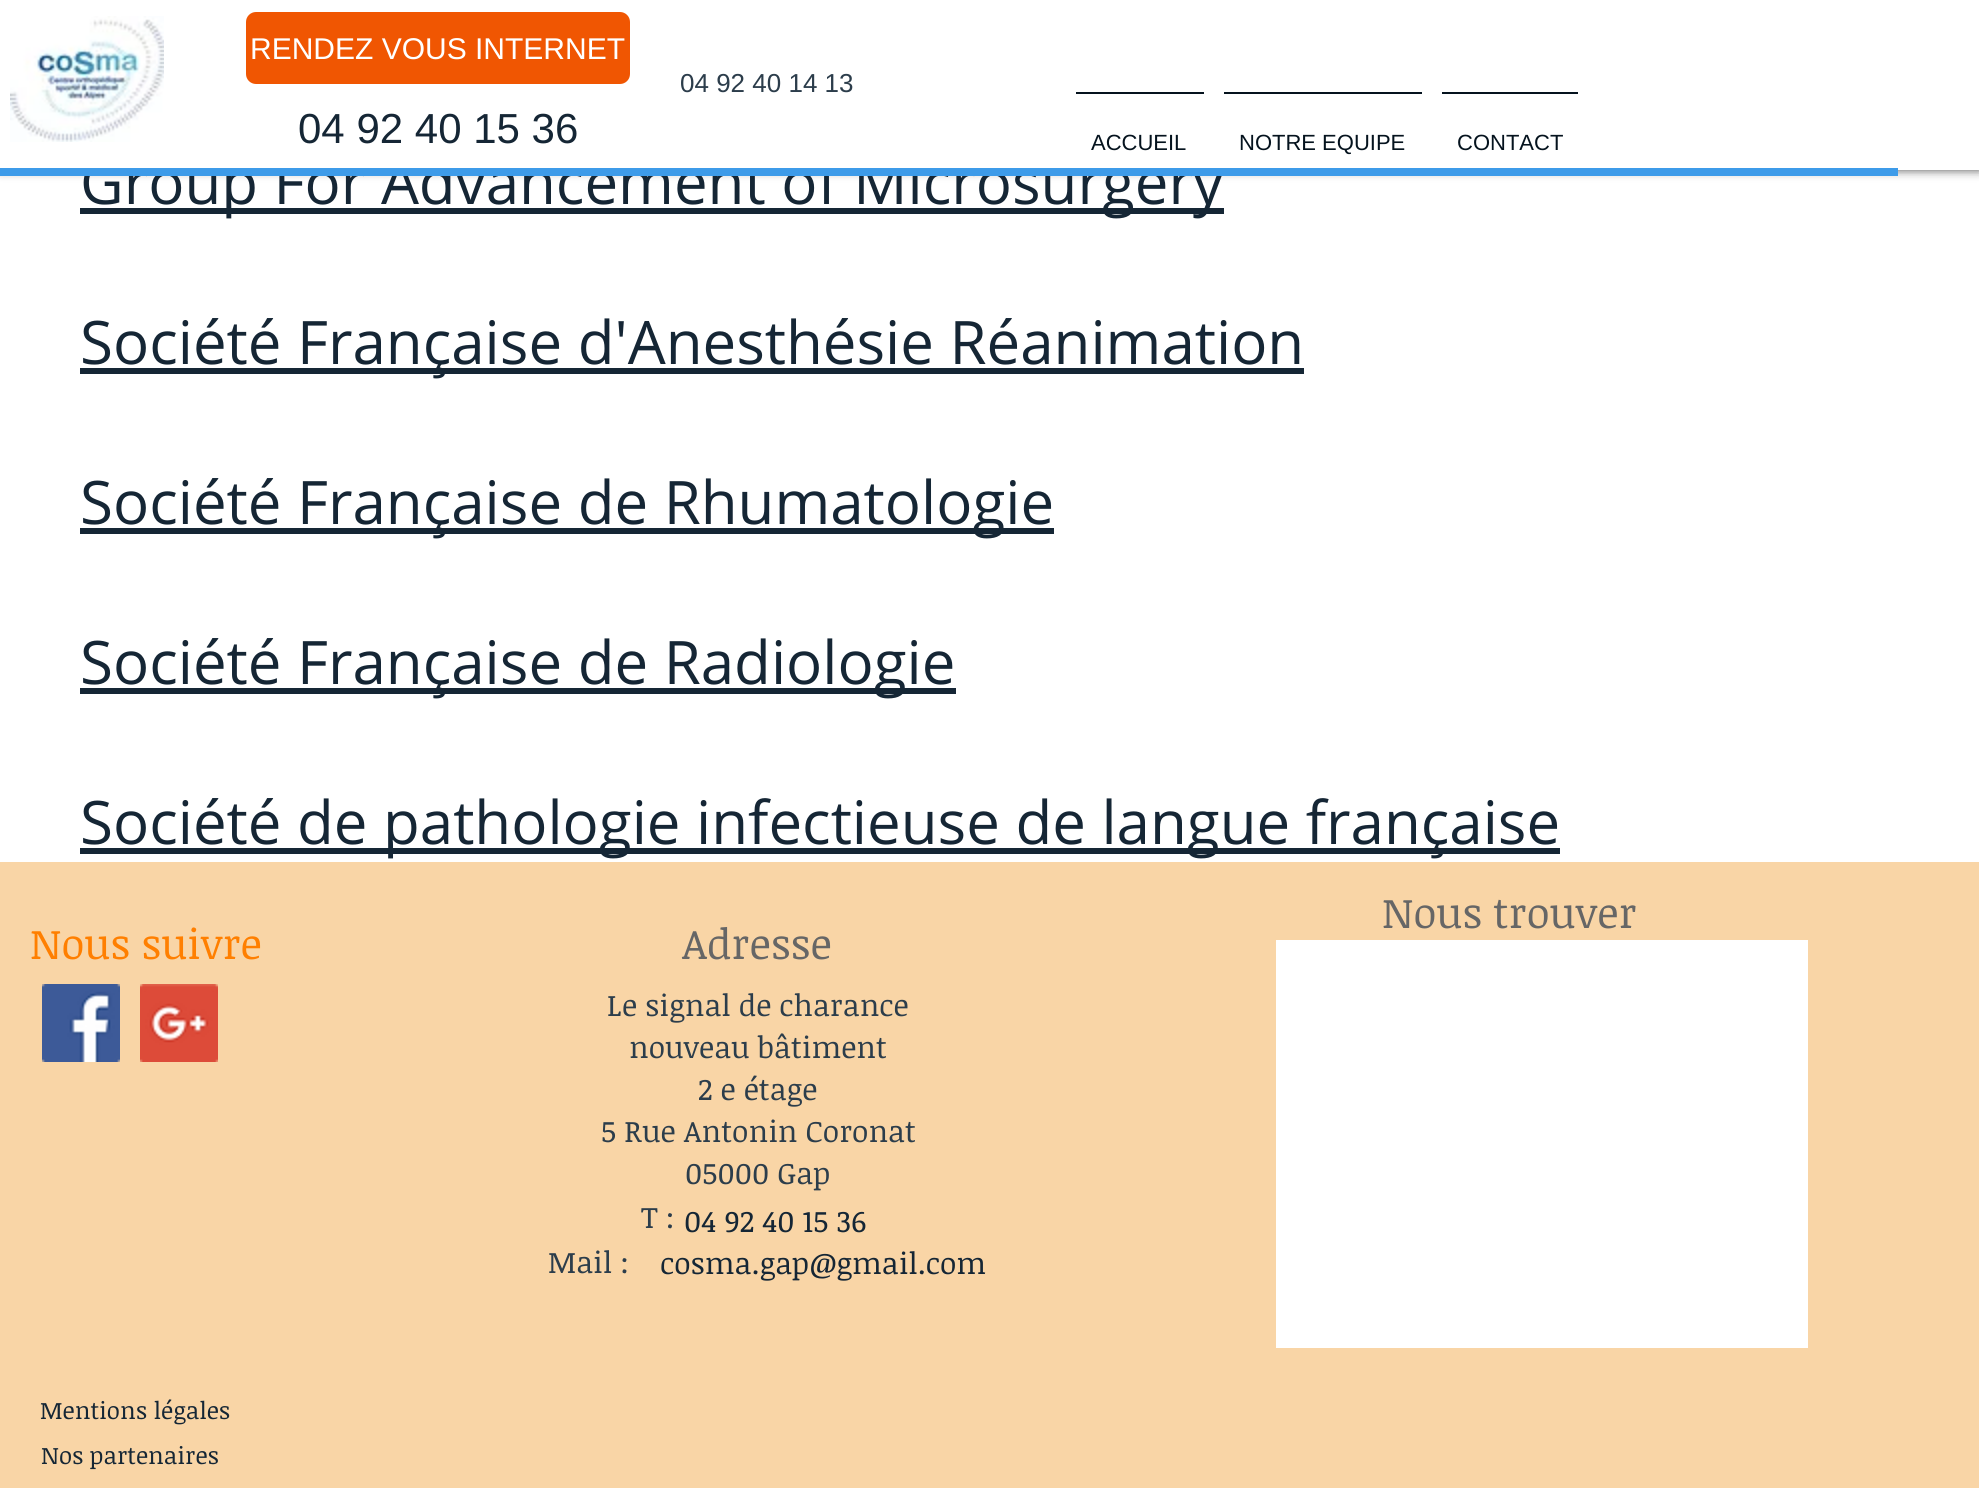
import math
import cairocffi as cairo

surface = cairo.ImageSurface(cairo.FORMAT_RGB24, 1979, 1488)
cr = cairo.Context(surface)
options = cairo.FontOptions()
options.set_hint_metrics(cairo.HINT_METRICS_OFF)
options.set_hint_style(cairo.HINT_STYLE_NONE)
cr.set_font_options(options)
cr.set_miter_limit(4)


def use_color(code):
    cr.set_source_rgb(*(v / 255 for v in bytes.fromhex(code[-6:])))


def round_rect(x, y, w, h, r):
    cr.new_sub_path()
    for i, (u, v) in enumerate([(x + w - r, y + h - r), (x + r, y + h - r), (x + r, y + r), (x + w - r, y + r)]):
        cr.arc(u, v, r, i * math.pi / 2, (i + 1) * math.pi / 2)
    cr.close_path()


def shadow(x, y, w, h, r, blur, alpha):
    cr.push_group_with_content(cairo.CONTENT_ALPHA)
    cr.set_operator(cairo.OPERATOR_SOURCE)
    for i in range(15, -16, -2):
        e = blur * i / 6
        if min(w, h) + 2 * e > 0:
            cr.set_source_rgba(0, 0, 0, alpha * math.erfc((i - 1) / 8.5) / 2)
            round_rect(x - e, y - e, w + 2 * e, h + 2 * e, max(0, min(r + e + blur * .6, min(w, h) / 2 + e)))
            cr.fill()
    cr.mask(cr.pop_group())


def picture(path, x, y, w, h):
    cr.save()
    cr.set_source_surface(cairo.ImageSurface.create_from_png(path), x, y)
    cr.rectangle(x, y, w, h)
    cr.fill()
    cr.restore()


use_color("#ffffff")
cr.paint()
use_color("#000000")
shadow(0, 0, 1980, 170, 0, 5, 0.7)
use_color("#152635")
cr.rectangle(80, 208, 1144, 6)
cr.fill()
cr.select_font_face("Open Sans")
cr.set_font_size(60)
cr.move_to(80, 204)
cr.show_text("Group For Advancement of Microsurgery")
use_color("#ffffff")
cr.rectangle(0, 0, 1979, 170)
cr.fill()
picture("img1.png", 10, 16, 154, 126)
use_color("#f05602")
round_rect(246, 12, 384, 72, 10)
cr.fill()
cr.select_font_face("Liberation Sans")
cr.set_font_size(30)
use_color("#ffffff")
cr.move_to(250, 59)
cr.show_text("RENDEZ VOUS INTERNET")
cr.set_font_size(26)
use_color("#2c3d4b")
cr.move_to(680, 92)
cr.show_text("04 92 40 14 13")
cr.set_font_size(42)
use_color("#152635")
cr.move_to(298, 143)
cr.show_text("04 92 40 15 36")
use_color("#05131e")
cr.rectangle(1076, 92, 128, 2)
cr.fill()
cr.set_font_size(22)
cr.move_to(1091, 150)
cr.show_text("ACCUEIL")
cr.rectangle(1224, 92, 198, 2)
cr.fill()
cr.move_to(1239, 150)
cr.show_text("NOTRE EQUIPE")
cr.rectangle(1442, 92, 136, 2)
cr.fill()
cr.move_to(1457, 150)
cr.show_text("CONTACT")
use_color("#3d9be9")
cr.rectangle(0, 168, 1898, 8)
cr.fill()
use_color("#152635")
cr.rectangle(80, 368, 1224, 6)
cr.fill()
cr.select_font_face("Open Sans")
cr.set_font_size(60)
cr.move_to(80, 364)
cr.show_text("Société Française d'Anesthésie Réanimation")
cr.rectangle(80, 528, 974, 6)
cr.fill()
cr.move_to(80, 524)
cr.show_text("Société Française de Rhumatologie")
cr.rectangle(80, 688, 876, 6)
cr.fill()
cr.move_to(80, 684)
cr.show_text("Société Française de Radiologie")
cr.rectangle(80, 848, 1480, 6)
cr.fill()
cr.move_to(80, 844)
cr.show_text("Société de pathologie infectieuse de langue française")
use_color("#f9d5a6")
cr.rectangle(0, 862, 1979, 626)
cr.fill()
cr.select_font_face("Noticia Text")
cr.set_font_size(42)
use_color("#666666")
cr.move_to(1382, 928)
cr.show_text("Nous trouver")
use_color("#ff7f00")
cr.move_to(30, 959)
cr.show_text("Nous suivre")
use_color("#666666")
cr.move_to(682, 959)
cr.show_text("Adresse")
use_color("#ffffff")
cr.rectangle(1276, 940, 532, 408)
cr.fill()
picture("img2.png", 42, 984, 78, 78)
picture("img3.png", 140, 984, 78, 78)
cr.set_font_size(30)
use_color("#2c3d4b")
cr.move_to(607, 1016)
cr.show_text("Le signal de charance")
cr.move_to(629, 1058)
cr.show_text("nouveau bâtiment")
cr.move_to(698, 1100)
cr.show_text("2 e étage")
cr.move_to(601, 1142)
cr.show_text("5 Rue Antonin Coronat")
cr.move_to(685, 1184)
cr.show_text("05000 Gap")
cr.move_to(641, 1228)
cr.show_text("T :")
cr.move_to(548, 1273)
cr.show_text("Mail :")
use_color("#152635")
cr.move_to(684, 1232)
cr.show_text("04 92 40 15 36")
cr.move_to(660, 1274)
cr.show_text("cosma.gap@gmail.com")
cr.set_font_size(24)
cr.move_to(40, 1419)
cr.show_text("Mentions légales")
cr.move_to(41, 1464)
cr.show_text("Nos partenaires")
surface.write_to_png("result.png")
